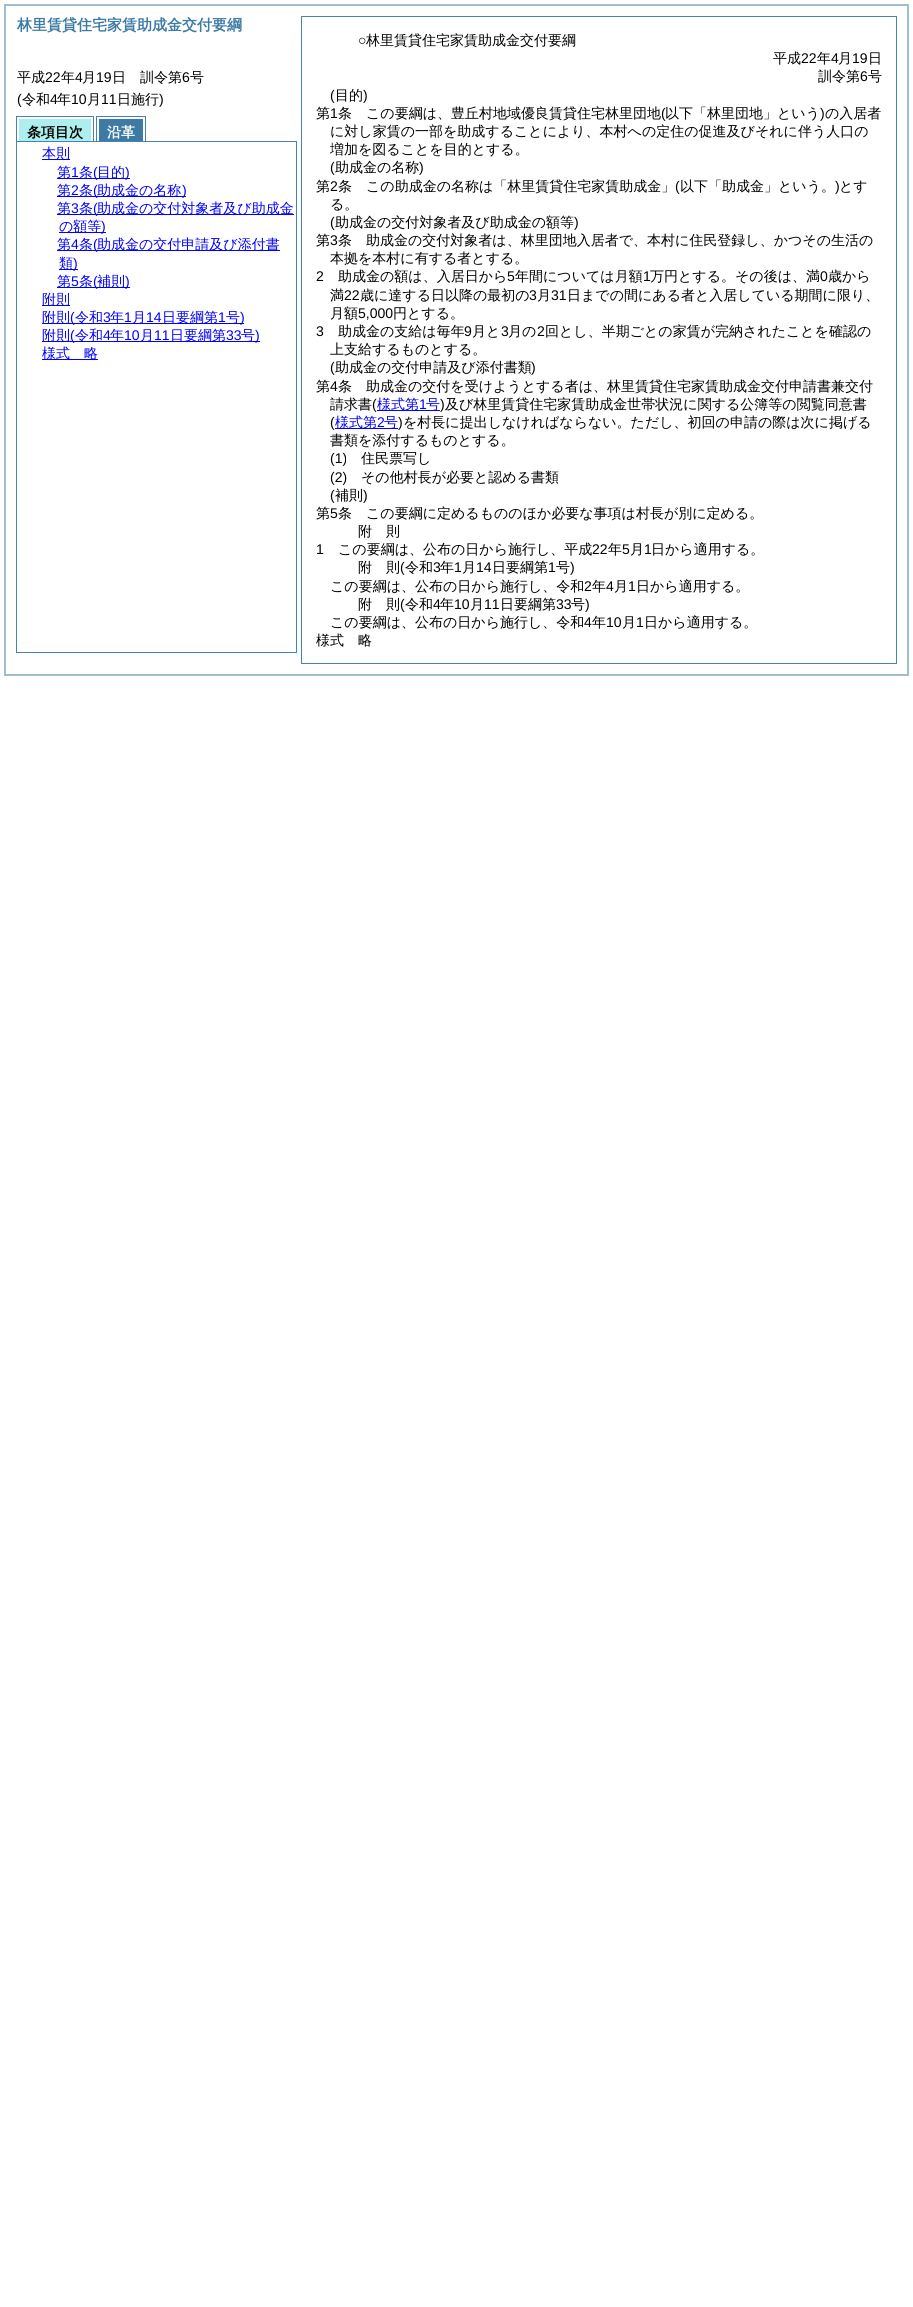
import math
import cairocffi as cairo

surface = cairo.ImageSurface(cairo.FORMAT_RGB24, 913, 2307)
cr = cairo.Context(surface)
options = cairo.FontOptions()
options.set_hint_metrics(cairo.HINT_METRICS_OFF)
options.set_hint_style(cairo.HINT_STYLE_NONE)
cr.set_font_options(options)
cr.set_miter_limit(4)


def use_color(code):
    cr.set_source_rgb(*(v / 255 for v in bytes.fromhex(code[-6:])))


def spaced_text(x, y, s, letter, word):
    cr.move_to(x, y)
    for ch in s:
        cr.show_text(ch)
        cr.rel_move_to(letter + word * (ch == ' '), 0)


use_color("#ffffff")
cr.paint()
cr.rectangle(5, 5, 903, 670)
use_color("#a0bfcc")
cr.stroke()
cr.select_font_face("WenQuanYi Zen Hei", cairo.FONT_SLANT_NORMAL, cairo.FONT_WEIGHT_BOLD)
cr.set_font_size(15)
use_color("#3d7aa4")
cr.move_to(17, 30)
cr.show_text("林里賃貸住宅家賃助成金交付要綱")
cr.select_font_face("WenQuanYi Zen Hei Medium")
cr.set_font_size(14)
use_color("#000000")
cr.move_to(17, 82)
cr.show_text("平成")
cr.select_font_face("Liberation Sans")
cr.move_to(45, 82)
cr.show_text("22")
cr.select_font_face("WenQuanYi Zen Hei Medium")
cr.move_to(61, 82)
cr.show_text("年")
cr.select_font_face("Liberation Sans")
cr.move_to(75, 82)
cr.show_text("4")
cr.select_font_face("WenQuanYi Zen Hei Medium")
cr.move_to(82, 82)
cr.show_text("月")
cr.select_font_face("Liberation Sans")
cr.move_to(96, 82)
cr.show_text("19")
cr.select_font_face("WenQuanYi Zen Hei Medium")
cr.move_to(112, 82)
cr.show_text("日　訓令第")
cr.select_font_face("Liberation Sans")
cr.move_to(182, 82)
cr.show_text("6")
cr.select_font_face("WenQuanYi Zen Hei Medium")
cr.move_to(190, 82)
cr.show_text("号")
cr.select_font_face("Liberation Sans")
cr.move_to(17, 104)
cr.show_text("(")
cr.select_font_face("WenQuanYi Zen Hei Medium")
cr.move_to(22, 104)
cr.show_text("令和")
cr.select_font_face("Liberation Sans")
cr.move_to(50, 104)
cr.show_text("4")
cr.select_font_face("WenQuanYi Zen Hei Medium")
cr.move_to(57, 104)
cr.show_text("年")
cr.select_font_face("Liberation Sans")
cr.move_to(71, 104)
cr.show_text("10")
cr.select_font_face("WenQuanYi Zen Hei Medium")
cr.move_to(87, 104)
cr.show_text("月")
cr.select_font_face("Liberation Sans")
cr.move_to(101, 104)
cr.show_text("11")
cr.select_font_face("WenQuanYi Zen Hei Medium")
cr.move_to(117, 104)
cr.show_text("日施行")
cr.select_font_face("Liberation Sans")
cr.move_to(159, 104)
cr.show_text(")")
use_color("#4682b4")
cr.rectangle(16, 116, 78, 1)
cr.fill()
cr.rectangle(93, 116, 1, 26)
cr.fill()
cr.rectangle(16, 116, 1, 26)
cr.fill()
use_color("#afeeee")
cr.rectangle(19, 119, 72, 22)
cr.fill()
cr.select_font_face("WenQuanYi Zen Hei", cairo.FONT_SLANT_NORMAL, cairo.FONT_WEIGHT_BOLD)
use_color("#000000")
cr.move_to(27, 137)
cr.show_text("条項目次")
use_color("#4682b4")
cr.rectangle(96, 116, 50, 1)
cr.fill()
cr.rectangle(145, 116, 1, 26)
cr.fill()
cr.rectangle(96, 116, 1, 26)
cr.fill()
use_color("#3d7aa4")
cr.rectangle(99, 119, 44, 22)
cr.fill()
use_color("#ffffff")
cr.move_to(107, 137)
cr.show_text("沿革")
cr.rectangle(16.5, 141.5, 280, 511)
use_color("#4682b4")
cr.set_line_width(1)
cr.stroke()
use_color("#0000ff")
cr.rectangle(42, 159, 28, 1)
cr.fill()
cr.select_font_face("WenQuanYi Zen Hei Medium")
cr.move_to(42, 158)
cr.show_text("本則")
cr.rectangle(57, 178, 73, 1)
cr.fill()
cr.move_to(57, 177)
cr.show_text("第")
cr.select_font_face("Liberation Sans")
cr.move_to(71, 177)
cr.show_text("1")
cr.select_font_face("WenQuanYi Zen Hei Medium")
cr.move_to(79, 177)
cr.show_text("条")
cr.select_font_face("Liberation Sans")
cr.move_to(93, 177)
cr.show_text("(")
cr.select_font_face("WenQuanYi Zen Hei Medium")
cr.move_to(97, 177)
cr.show_text("目的")
cr.select_font_face("Liberation Sans")
cr.move_to(125, 177)
cr.show_text(")")
cr.rectangle(57, 196, 129, 1)
cr.fill()
cr.select_font_face("WenQuanYi Zen Hei Medium")
cr.move_to(57, 195)
cr.show_text("第")
cr.select_font_face("Liberation Sans")
cr.move_to(71, 195)
cr.show_text("2")
cr.select_font_face("WenQuanYi Zen Hei Medium")
cr.move_to(79, 195)
cr.show_text("条")
cr.select_font_face("Liberation Sans")
cr.move_to(93, 195)
cr.show_text("(")
cr.select_font_face("WenQuanYi Zen Hei Medium")
cr.move_to(97, 195)
cr.show_text("助成金の名称")
cr.select_font_face("Liberation Sans")
cr.move_to(182, 195)
cr.show_text(")")
cr.rectangle(57, 214, 237, 1)
cr.fill()
cr.select_font_face("WenQuanYi Zen Hei Medium")
cr.move_to(57, 213)
cr.show_text("第")
cr.select_font_face("Liberation Sans")
cr.move_to(71, 213)
cr.show_text("3")
cr.select_font_face("WenQuanYi Zen Hei Medium")
cr.move_to(79, 213)
cr.show_text("条")
cr.select_font_face("Liberation Sans")
cr.move_to(93, 213)
cr.show_text("(")
cr.select_font_face("WenQuanYi Zen Hei Medium")
cr.move_to(97, 213)
cr.show_text("助成金の交付対象者及び助成金")
cr.rectangle(59, 232, 47, 1)
cr.fill()
cr.move_to(59, 231)
cr.show_text("の額等")
cr.select_font_face("Liberation Sans")
cr.move_to(101, 231)
cr.show_text(")")
cr.rectangle(57, 250, 223, 1)
cr.fill()
cr.select_font_face("WenQuanYi Zen Hei Medium")
cr.move_to(57, 249)
cr.show_text("第")
cr.select_font_face("Liberation Sans")
cr.move_to(71, 249)
cr.show_text("4")
cr.select_font_face("WenQuanYi Zen Hei Medium")
cr.move_to(79, 249)
cr.show_text("条")
cr.select_font_face("Liberation Sans")
cr.move_to(93, 249)
cr.show_text("(")
cr.select_font_face("WenQuanYi Zen Hei Medium")
cr.move_to(97, 249)
cr.show_text("助成金の交付申請及び添付書")
cr.rectangle(59, 269, 19, 1)
cr.fill()
cr.move_to(59, 268)
cr.show_text("類")
cr.select_font_face("Liberation Sans")
cr.move_to(73, 268)
cr.show_text(")")
cr.rectangle(57, 287, 73, 1)
cr.fill()
cr.select_font_face("WenQuanYi Zen Hei Medium")
cr.move_to(57, 286)
cr.show_text("第")
cr.select_font_face("Liberation Sans")
cr.move_to(71, 286)
cr.show_text("5")
cr.select_font_face("WenQuanYi Zen Hei Medium")
cr.move_to(79, 286)
cr.show_text("条")
cr.select_font_face("Liberation Sans")
cr.move_to(93, 286)
cr.show_text("(")
cr.select_font_face("WenQuanYi Zen Hei Medium")
cr.move_to(97, 286)
cr.show_text("補則")
cr.select_font_face("Liberation Sans")
cr.move_to(125, 286)
cr.show_text(")")
cr.rectangle(42, 305, 28, 1)
cr.fill()
cr.select_font_face("WenQuanYi Zen Hei Medium")
cr.move_to(42, 304)
cr.show_text("附則")
cr.rectangle(42, 323, 202, 1)
cr.fill()
cr.move_to(42, 322)
cr.show_text("附則")
cr.select_font_face("Liberation Sans")
cr.move_to(70, 322)
cr.show_text("(")
cr.select_font_face("WenQuanYi Zen Hei Medium")
cr.move_to(75, 322)
cr.show_text("令和")
cr.select_font_face("Liberation Sans")
cr.move_to(103, 322)
cr.show_text("3")
cr.select_font_face("WenQuanYi Zen Hei Medium")
cr.move_to(110, 322)
cr.show_text("年")
cr.select_font_face("Liberation Sans")
cr.move_to(124, 322)
cr.show_text("1")
cr.select_font_face("WenQuanYi Zen Hei Medium")
cr.move_to(132, 322)
cr.show_text("月")
cr.select_font_face("Liberation Sans")
cr.move_to(146, 322)
cr.show_text("14")
cr.select_font_face("WenQuanYi Zen Hei Medium")
cr.move_to(162, 322)
cr.show_text("日要綱第")
cr.select_font_face("Liberation Sans")
cr.move_to(218, 322)
cr.show_text("1")
cr.select_font_face("WenQuanYi Zen Hei Medium")
cr.move_to(226, 322)
cr.show_text("号")
cr.select_font_face("Liberation Sans")
cr.move_to(240, 322)
cr.show_text(")")
cr.rectangle(42, 341, 218, 1)
cr.fill()
cr.select_font_face("WenQuanYi Zen Hei Medium")
cr.move_to(42, 340)
cr.show_text("附則")
cr.select_font_face("Liberation Sans")
cr.move_to(70, 340)
cr.show_text("(")
cr.select_font_face("WenQuanYi Zen Hei Medium")
cr.move_to(75, 340)
cr.show_text("令和")
cr.select_font_face("Liberation Sans")
cr.move_to(103, 340)
cr.show_text("4")
cr.select_font_face("WenQuanYi Zen Hei Medium")
cr.move_to(110, 340)
cr.show_text("年")
cr.select_font_face("Liberation Sans")
cr.move_to(124, 340)
cr.show_text("10")
cr.select_font_face("WenQuanYi Zen Hei Medium")
cr.move_to(140, 340)
cr.show_text("月")
cr.select_font_face("Liberation Sans")
cr.move_to(154, 340)
cr.show_text("11")
cr.select_font_face("WenQuanYi Zen Hei Medium")
cr.move_to(170, 340)
cr.show_text("日要綱第")
cr.select_font_face("Liberation Sans")
cr.move_to(226, 340)
cr.show_text("33")
cr.select_font_face("WenQuanYi Zen Hei Medium")
cr.move_to(241, 340)
cr.show_text("号")
cr.select_font_face("Liberation Sans")
cr.move_to(255, 340)
cr.show_text(")")
cr.rectangle(42, 359, 56, 1)
cr.fill()
cr.select_font_face("WenQuanYi Zen Hei Medium")
cr.move_to(42, 358)
cr.show_text("様式")
cr.move_to(84, 358)
cr.show_text("略")
cr.rectangle(301.5, 16.5, 595, 647)
use_color("#4682b4")
cr.stroke()
cr.select_font_face("Liberation Sans")
use_color("#000000")
cr.move_to(358, 45)
cr.show_text("○")
cr.select_font_face("WenQuanYi Zen Hei Medium")
cr.move_to(366, 45)
cr.show_text("林里賃貸住宅家賃助成金交付要綱")
cr.move_to(773, 63)
cr.show_text("平成")
cr.select_font_face("Liberation Sans")
cr.move_to(801, 63)
cr.show_text("22")
cr.select_font_face("WenQuanYi Zen Hei Medium")
cr.move_to(817, 63)
cr.show_text("年")
cr.select_font_face("Liberation Sans")
cr.move_to(831, 63)
cr.show_text("4")
cr.select_font_face("WenQuanYi Zen Hei Medium")
cr.move_to(838, 63)
cr.show_text("月")
cr.select_font_face("Liberation Sans")
cr.move_to(852, 63)
cr.show_text("19")
cr.select_font_face("WenQuanYi Zen Hei Medium")
cr.move_to(868, 63)
cr.show_text("日")
cr.move_to(818, 81)
cr.show_text("訓令第")
cr.select_font_face("Liberation Sans")
cr.move_to(860, 81)
cr.show_text("6")
cr.select_font_face("WenQuanYi Zen Hei Medium")
cr.move_to(868, 81)
cr.show_text("号")
cr.select_font_face("Liberation Sans")
cr.move_to(330, 100)
cr.show_text("(")
cr.select_font_face("WenQuanYi Zen Hei Medium")
cr.move_to(335, 100)
cr.show_text("目的")
cr.select_font_face("Liberation Sans")
cr.move_to(363, 100)
cr.show_text(")")
cr.select_font_face("WenQuanYi Zen Hei Medium")
cr.move_to(316, 118)
cr.show_text("第")
cr.select_font_face("Liberation Sans")
cr.move_to(330, 118)
cr.show_text("1")
cr.select_font_face("WenQuanYi Zen Hei Medium")
cr.move_to(338, 118)
cr.show_text("条")
cr.move_to(366, 118)
cr.show_text("この要綱は、豊丘村地域優良賃貸住宅林里団地")
cr.select_font_face("Liberation Sans")
cr.move_to(661, 118)
cr.show_text("(")
cr.select_font_face("WenQuanYi Zen Hei Medium")
cr.move_to(665, 118)
cr.show_text("以下「林里団地」という")
cr.select_font_face("Liberation Sans")
cr.move_to(820, 118)
cr.show_text(")")
cr.select_font_face("WenQuanYi Zen Hei Medium")
cr.move_to(825, 118)
cr.show_text("の入居者")
cr.move_to(330, 136)
cr.show_text("に対し家賃の一部を助成することにより、本村への定住の促進及びそれに伴う人口の")
cr.move_to(330, 154)
cr.show_text("増加を図ることを目的とする。")
cr.select_font_face("Liberation Sans")
cr.move_to(330, 172)
cr.show_text("(")
cr.select_font_face("WenQuanYi Zen Hei Medium")
cr.move_to(335, 172)
cr.show_text("助成金の名称")
cr.select_font_face("Liberation Sans")
cr.move_to(419, 172)
cr.show_text(")")
cr.select_font_face("WenQuanYi Zen Hei Medium")
cr.move_to(316, 191)
cr.show_text("第")
cr.select_font_face("Liberation Sans")
cr.move_to(330, 191)
cr.show_text("2")
cr.select_font_face("WenQuanYi Zen Hei Medium")
cr.move_to(338, 191)
cr.show_text("条")
cr.move_to(366, 191)
cr.show_text("この助成金の名称は「林里賃貸住宅家賃助成金」")
cr.select_font_face("Liberation Sans")
cr.move_to(675, 191)
cr.show_text("(")
cr.select_font_face("WenQuanYi Zen Hei Medium")
cr.move_to(680, 191)
cr.show_text("以下「助成金」という。")
cr.select_font_face("Liberation Sans")
cr.move_to(835, 191)
cr.show_text(")")
cr.select_font_face("WenQuanYi Zen Hei Medium")
cr.move_to(839, 191)
cr.show_text("とす")
cr.move_to(330, 209)
cr.show_text("る。")
cr.select_font_face("Liberation Sans")
cr.move_to(330, 227)
cr.show_text("(")
cr.select_font_face("WenQuanYi Zen Hei Medium")
cr.move_to(335, 227)
cr.show_text("助成金の交付対象者及び助成金の額等")
cr.select_font_face("Liberation Sans")
cr.move_to(574, 227)
cr.show_text(")")
cr.select_font_face("WenQuanYi Zen Hei Medium")
cr.move_to(316, 245)
cr.show_text("第")
cr.select_font_face("Liberation Sans")
cr.move_to(330, 245)
cr.show_text("3")
cr.select_font_face("WenQuanYi Zen Hei Medium")
cr.move_to(338, 245)
cr.show_text("条")
cr.move_to(366, 245)
cr.show_text("助成金の交付対象者は、林里団地入居者で、本村に住民登録し、かつその生活の")
cr.move_to(330, 263)
cr.show_text("本拠を本村に有する者とする。")
cr.select_font_face("Liberation Sans")
cr.move_to(316, 281)
cr.show_text("2")
cr.select_font_face("WenQuanYi Zen Hei Medium")
cr.move_to(338, 281)
cr.show_text("助成金の額は、入居日から")
cr.select_font_face("Liberation Sans")
cr.move_to(507, 281)
cr.show_text("5")
cr.select_font_face("WenQuanYi Zen Hei Medium")
cr.move_to(515, 281)
cr.show_text("年間については月額")
cr.select_font_face("Liberation Sans")
cr.move_to(643, 281)
cr.show_text("1")
cr.select_font_face("WenQuanYi Zen Hei Medium")
cr.move_to(650, 281)
cr.show_text("万円とする。その後は、満")
cr.select_font_face("Liberation Sans")
cr.move_to(820, 281)
cr.show_text("0")
cr.select_font_face("WenQuanYi Zen Hei Medium")
cr.move_to(828, 281)
cr.show_text("歳から")
cr.move_to(330, 300)
cr.show_text("満")
cr.select_font_face("Liberation Sans")
cr.move_to(344, 300)
cr.show_text("22")
cr.select_font_face("WenQuanYi Zen Hei Medium")
cr.move_to(360, 300)
cr.show_text("歳に達する日以降の最初の")
cr.select_font_face("Liberation Sans")
cr.move_to(529, 300)
cr.show_text("3")
cr.select_font_face("WenQuanYi Zen Hei Medium")
cr.move_to(537, 300)
cr.show_text("月")
cr.select_font_face("Liberation Sans")
cr.move_to(551, 300)
cr.show_text("31")
cr.select_font_face("WenQuanYi Zen Hei Medium")
cr.move_to(567, 300)
cr.show_text("日までの間にある者と入居している期間に限り、")
cr.move_to(330, 318)
cr.show_text("月額")
cr.select_font_face("Liberation Sans")
cr.move_to(358, 318)
cr.show_text("5,000")
cr.select_font_face("WenQuanYi Zen Hei Medium")
cr.move_to(393, 318)
cr.show_text("円とする。")
cr.select_font_face("Liberation Sans")
cr.move_to(316, 336)
cr.show_text("3")
cr.select_font_face("WenQuanYi Zen Hei Medium")
cr.move_to(338, 336)
cr.show_text("助成金の支給は毎年")
cr.select_font_face("Liberation Sans")
cr.move_to(464, 336)
cr.show_text("9")
cr.select_font_face("WenQuanYi Zen Hei Medium")
cr.move_to(472, 336)
cr.show_text("月と")
cr.select_font_face("Liberation Sans")
cr.move_to(501, 336)
cr.show_text("3")
cr.select_font_face("WenQuanYi Zen Hei Medium")
cr.move_to(508, 336)
cr.show_text("月の")
cr.select_font_face("Liberation Sans")
cr.move_to(537, 336)
cr.show_text("2")
cr.select_font_face("WenQuanYi Zen Hei Medium")
cr.move_to(545, 336)
cr.show_text("回とし、半期ごとの家賃が完納されたことを確認の")
cr.move_to(330, 354)
cr.show_text("上支給するものとする。")
cr.select_font_face("Liberation Sans")
cr.move_to(330, 372)
cr.show_text("(")
cr.select_font_face("WenQuanYi Zen Hei Medium")
cr.move_to(335, 372)
cr.show_text("助成金の交付申請及び添付書類")
cr.select_font_face("Liberation Sans")
cr.move_to(531, 372)
cr.show_text(")")
cr.select_font_face("WenQuanYi Zen Hei Medium")
cr.move_to(316, 391)
cr.show_text("第")
cr.select_font_face("Liberation Sans")
cr.move_to(330, 391)
cr.show_text("4")
cr.select_font_face("WenQuanYi Zen Hei Medium")
cr.move_to(338, 391)
cr.show_text("条")
cr.move_to(366, 391)
cr.show_text("助成金の交付を受けようとする者は、林里賃貸住宅家賃助成金交付申請書兼交付")
cr.move_to(330, 409)
cr.show_text("請求書")
cr.select_font_face("Liberation Sans")
cr.move_to(372, 409)
cr.show_text("(")
use_color("#0000ff")
cr.rectangle(377, 410, 63, 1)
cr.fill()
cr.select_font_face("WenQuanYi Zen Hei Medium")
cr.move_to(377, 409)
cr.show_text("様式第")
cr.select_font_face("Liberation Sans")
cr.move_to(419, 409)
cr.show_text("1")
cr.select_font_face("WenQuanYi Zen Hei Medium")
cr.move_to(426, 409)
cr.show_text("号")
cr.select_font_face("Liberation Sans")
use_color("#000000")
cr.move_to(440, 409)
cr.show_text(")")
cr.select_font_face("WenQuanYi Zen Hei Medium")
cr.move_to(445, 409)
cr.show_text("及び林里賃貸住宅家賃助成金世帯状況に関する公簿等の閲覧同意書")
cr.select_font_face("Liberation Sans")
cr.move_to(330, 427)
cr.show_text("(")
use_color("#0000ff")
cr.rectangle(335, 428, 63, 1)
cr.fill()
cr.select_font_face("WenQuanYi Zen Hei Medium")
cr.move_to(335, 427)
cr.show_text("様式第")
cr.select_font_face("Liberation Sans")
cr.move_to(377, 427)
cr.show_text("2")
cr.select_font_face("WenQuanYi Zen Hei Medium")
cr.move_to(384, 427)
cr.show_text("号")
cr.select_font_face("Liberation Sans")
use_color("#000000")
cr.move_to(398, 427)
cr.show_text(")")
cr.select_font_face("WenQuanYi Zen Hei Medium")
cr.move_to(403, 427)
cr.show_text("を村長に提出しなければならない。ただし、初回の申請の際は次に掲げる")
cr.move_to(330, 445)
cr.show_text("書類を添付するものとする。")
cr.select_font_face("Liberation Sans")
cr.move_to(330, 463)
cr.show_text("(1)")
cr.select_font_face("WenQuanYi Zen Hei Medium")
cr.move_to(361, 463)
cr.show_text("住民票写し")
cr.select_font_face("Liberation Sans")
cr.move_to(330, 482)
cr.show_text("(2)")
cr.select_font_face("WenQuanYi Zen Hei Medium")
cr.move_to(361, 482)
cr.show_text("その他村長が必要と認める書類")
cr.select_font_face("Liberation Sans")
cr.move_to(330, 500)
cr.show_text("(")
cr.select_font_face("WenQuanYi Zen Hei Medium")
cr.move_to(335, 500)
cr.show_text("補則")
cr.select_font_face("Liberation Sans")
cr.move_to(363, 500)
cr.show_text(")")
cr.select_font_face("WenQuanYi Zen Hei Medium")
cr.move_to(316, 518)
cr.show_text("第")
cr.select_font_face("Liberation Sans")
cr.move_to(330, 518)
cr.show_text("5")
cr.select_font_face("WenQuanYi Zen Hei Medium")
cr.move_to(338, 518)
cr.show_text("条")
cr.move_to(366, 518)
cr.show_text("この要綱に定めるもののほか必要な事項は村長が別に定める。")
spaced_text(358, 536, "附", 14, 0)
cr.move_to(386, 536)
cr.show_text("則")
cr.select_font_face("Liberation Sans")
cr.move_to(316, 554)
cr.show_text("1")
cr.select_font_face("WenQuanYi Zen Hei Medium")
cr.move_to(338, 554)
cr.show_text("この要綱は、公布の日から施行し、平成")
cr.select_font_face("Liberation Sans")
cr.move_to(592, 554)
cr.show_text("22")
cr.select_font_face("WenQuanYi Zen Hei Medium")
cr.move_to(608, 554)
cr.show_text("年")
cr.select_font_face("Liberation Sans")
cr.move_to(622, 554)
cr.show_text("5")
cr.select_font_face("WenQuanYi Zen Hei Medium")
cr.move_to(630, 554)
cr.show_text("月")
cr.select_font_face("Liberation Sans")
cr.move_to(644, 554)
cr.show_text("1")
cr.select_font_face("WenQuanYi Zen Hei Medium")
cr.move_to(651, 554)
cr.show_text("日から適用する。")
spaced_text(358, 572, "附", 14, 0)
cr.move_to(386, 572)
cr.show_text("則")
cr.select_font_face("Liberation Sans")
cr.move_to(400, 572)
cr.show_text("(")
cr.select_font_face("WenQuanYi Zen Hei Medium")
cr.move_to(405, 572)
cr.show_text("令和")
cr.select_font_face("Liberation Sans")
cr.move_to(433, 572)
cr.show_text("3")
cr.select_font_face("WenQuanYi Zen Hei Medium")
cr.move_to(440, 572)
cr.show_text("年")
cr.select_font_face("Liberation Sans")
cr.move_to(454, 572)
cr.show_text("1")
cr.select_font_face("WenQuanYi Zen Hei Medium")
cr.move_to(462, 572)
cr.show_text("月")
cr.select_font_face("Liberation Sans")
cr.move_to(476, 572)
cr.show_text("14")
cr.select_font_face("WenQuanYi Zen Hei Medium")
cr.move_to(492, 572)
cr.show_text("日要綱第")
cr.select_font_face("Liberation Sans")
cr.move_to(548, 572)
cr.show_text("1")
cr.select_font_face("WenQuanYi Zen Hei Medium")
cr.move_to(556, 572)
cr.show_text("号")
cr.select_font_face("Liberation Sans")
cr.move_to(570, 572)
cr.show_text(")")
cr.select_font_face("WenQuanYi Zen Hei Medium")
cr.move_to(330, 591)
cr.show_text("この要綱は、公布の日から施行し、令和")
cr.select_font_face("Liberation Sans")
cr.move_to(584, 591)
cr.show_text("2")
cr.select_font_face("WenQuanYi Zen Hei Medium")
cr.move_to(592, 591)
cr.show_text("年")
cr.select_font_face("Liberation Sans")
cr.move_to(606, 591)
cr.show_text("4")
cr.select_font_face("WenQuanYi Zen Hei Medium")
cr.move_to(614, 591)
cr.show_text("月")
cr.select_font_face("Liberation Sans")
cr.move_to(628, 591)
cr.show_text("1")
cr.select_font_face("WenQuanYi Zen Hei Medium")
cr.move_to(636, 591)
cr.show_text("日から適用する。")
spaced_text(358, 609, "附", 14, 0)
cr.move_to(386, 609)
cr.show_text("則")
cr.select_font_face("Liberation Sans")
cr.move_to(400, 609)
cr.show_text("(")
cr.select_font_face("WenQuanYi Zen Hei Medium")
cr.move_to(405, 609)
cr.show_text("令和")
cr.select_font_face("Liberation Sans")
cr.move_to(433, 609)
cr.show_text("4")
cr.select_font_face("WenQuanYi Zen Hei Medium")
cr.move_to(440, 609)
cr.show_text("年")
cr.select_font_face("Liberation Sans")
cr.move_to(454, 609)
cr.show_text("10")
cr.select_font_face("WenQuanYi Zen Hei Medium")
cr.move_to(470, 609)
cr.show_text("月")
cr.select_font_face("Liberation Sans")
cr.move_to(484, 609)
cr.show_text("11")
cr.select_font_face("WenQuanYi Zen Hei Medium")
cr.move_to(500, 609)
cr.show_text("日要綱第")
cr.select_font_face("Liberation Sans")
cr.move_to(556, 609)
cr.show_text("33")
cr.select_font_face("WenQuanYi Zen Hei Medium")
cr.move_to(571, 609)
cr.show_text("号")
cr.select_font_face("Liberation Sans")
cr.move_to(585, 609)
cr.show_text(")")
cr.select_font_face("WenQuanYi Zen Hei Medium")
cr.move_to(330, 627)
cr.show_text("この要綱は、公布の日から施行し、令和")
cr.select_font_face("Liberation Sans")
cr.move_to(584, 627)
cr.show_text("4")
cr.select_font_face("WenQuanYi Zen Hei Medium")
cr.move_to(592, 627)
cr.show_text("年")
cr.select_font_face("Liberation Sans")
cr.move_to(606, 627)
cr.show_text("10")
cr.select_font_face("WenQuanYi Zen Hei Medium")
cr.move_to(622, 627)
cr.show_text("月")
cr.select_font_face("Liberation Sans")
cr.move_to(636, 627)
cr.show_text("1")
cr.select_font_face("WenQuanYi Zen Hei Medium")
cr.move_to(644, 627)
cr.show_text("日から適用する。")
cr.move_to(316, 645)
cr.show_text("様式")
cr.move_to(358, 645)
cr.show_text("略")
surface.write_to_png("result.png")
